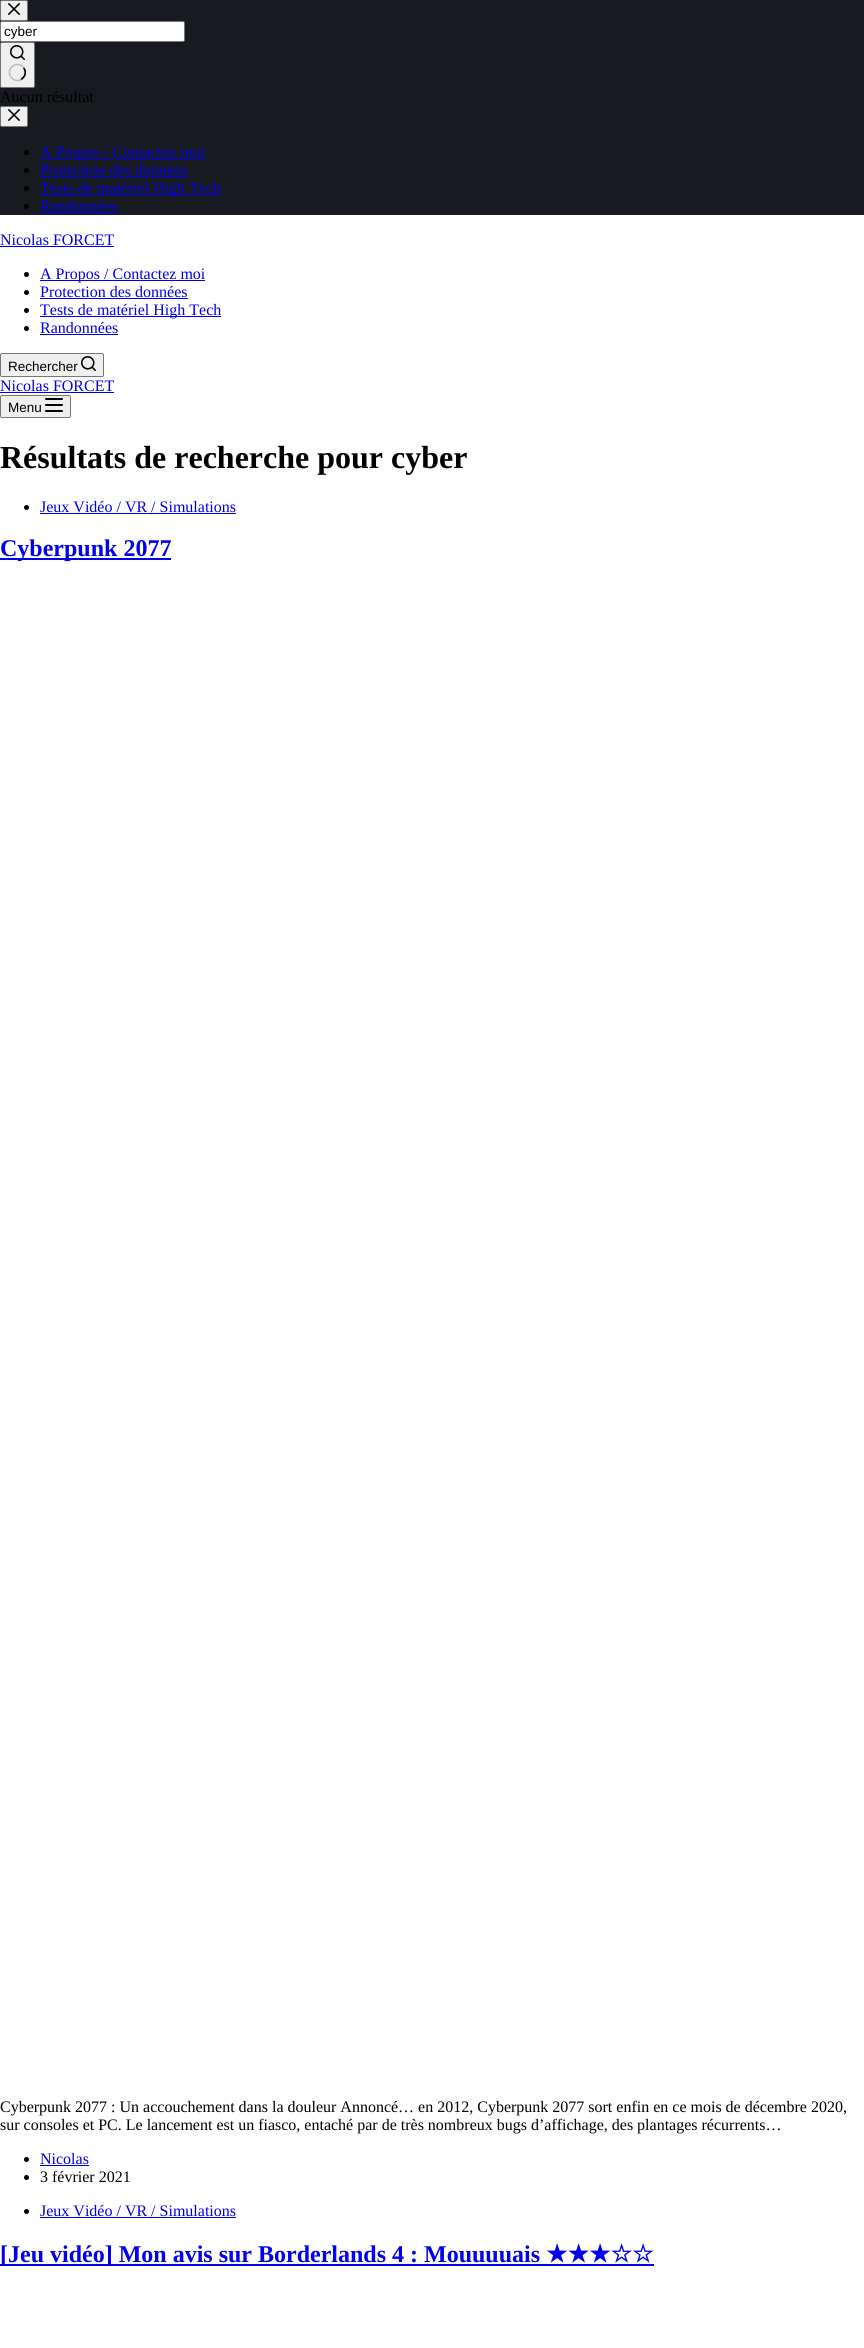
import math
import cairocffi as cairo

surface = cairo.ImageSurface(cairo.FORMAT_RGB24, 864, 2348)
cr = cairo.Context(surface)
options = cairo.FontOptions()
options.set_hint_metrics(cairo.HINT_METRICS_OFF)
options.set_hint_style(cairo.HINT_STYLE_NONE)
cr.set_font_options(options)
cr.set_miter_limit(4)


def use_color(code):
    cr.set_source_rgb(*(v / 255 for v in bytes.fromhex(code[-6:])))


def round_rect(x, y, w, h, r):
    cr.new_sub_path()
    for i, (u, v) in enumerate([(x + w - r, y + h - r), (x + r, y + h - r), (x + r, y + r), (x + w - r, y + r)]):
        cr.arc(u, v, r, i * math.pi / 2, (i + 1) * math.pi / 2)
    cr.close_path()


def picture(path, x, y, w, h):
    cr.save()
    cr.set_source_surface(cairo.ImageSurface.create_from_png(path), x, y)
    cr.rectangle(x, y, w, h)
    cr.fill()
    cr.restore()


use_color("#ffffff")
cr.paint()
use_color("#171a1e")
cr.rectangle(0, 0, 864, 215)
cr.fill()
use_color("#efefef")
round_rect(0.5, 0.5, 27, 20, 1.5)
cr.fill_preserve()
use_color("#767676")
cr.set_line_width(1)
cr.stroke()
picture("img1.png", 8, 3, 12, 12)
use_color("#ffffff")
round_rect(0.5, 21.5, 184, 20, 1.5)
cr.fill_preserve()
use_color("#767676")
cr.stroke()
cr.select_font_face("Liberation Sans")
cr.set_font_size(13.5)
use_color("#000000")
cr.move_to(4, 36)
cr.show_text("cyber")
use_color("#efefef")
round_rect(0.5, 42.5, 34, 45, 1.5)
cr.fill_preserve()
use_color("#767676")
cr.stroke()
picture("img2.png", 10, 45, 15, 15)
cr.arc(17.5, 72.5, 8, 0, 2 * math.pi)
use_color("#bfbfbf")
cr.set_line_width(1.6)
cr.stroke()
cr.new_path()
cr.move_to(24, 68.5)
cr.curve_to(26.5, 72, 25, 77, 21.5, 79)
use_color("#000000")
cr.set_line_cap(cairo.LINE_CAP_ROUND)
cr.stroke()
cr.select_font_face("Liberation Serif")
cr.set_font_size(16)
cr.move_to(0, 102)
cr.show_text("Aucun résultat")
use_color("#efefef")
round_rect(0.5, 106.5, 27, 20, 1.5)
cr.fill_preserve()
use_color("#767676")
cr.set_line_width(1)
cr.set_line_cap(cairo.LINE_CAP_BUTT)
cr.stroke()
picture("img1.png", 8, 109, 12, 12)
use_color("#000000")
cr.arc(26.5, 152.5, 2.5, 0, 2 * math.pi)
cr.fill()
use_color("#0000ee")
cr.rectangle(40, 158, 165, 1)
cr.fill()
cr.move_to(40, 157)
cr.show_text("A Propos / Contactez moi")
use_color("#000000")
cr.new_path()
cr.arc(26.5, 170.5, 2.5, 0, 2 * math.pi)
cr.fill()
use_color("#0000ee")
cr.move_to(40, 175)
cr.show_text("Protection des données")
cr.rectangle(40, 176, 148, 1)
cr.fill()
use_color("#000000")
cr.arc(26.5, 188.5, 2.5, 0, 2 * math.pi)
cr.fill()
use_color("#0000ee")
cr.rectangle(40, 194, 181, 1)
cr.fill()
cr.move_to(40, 193)
cr.show_text("Tests de matériel High Tech")
use_color("#000000")
cr.new_path()
cr.arc(26.5, 206.5, 2.5, 0, 2 * math.pi)
cr.fill()
use_color("#0000ee")
cr.move_to(40, 211)
cr.show_text("Randonnées")
cr.rectangle(40, 212, 78, 1)
cr.fill()
cr.move_to(0, 245)
cr.show_text("Nicolas FORCET")
cr.rectangle(0, 246, 114, 1)
cr.fill()
use_color("#000000")
cr.arc(26.5, 274.5, 2.5, 0, 2 * math.pi)
cr.fill()
use_color("#0000ee")
cr.rectangle(40, 280, 165, 1)
cr.fill()
cr.move_to(40, 279)
cr.show_text("A Propos / Contactez moi")
use_color("#000000")
cr.new_path()
cr.arc(26.5, 292.5, 2.5, 0, 2 * math.pi)
cr.fill()
use_color("#0000ee")
cr.move_to(40, 297)
cr.show_text("Protection des données")
cr.rectangle(40, 298, 148, 1)
cr.fill()
use_color("#000000")
cr.arc(26.5, 310.5, 2.5, 0, 2 * math.pi)
cr.fill()
use_color("#0000ee")
cr.rectangle(40, 316, 181, 1)
cr.fill()
cr.move_to(40, 315)
cr.show_text("Tests de matériel High Tech")
use_color("#000000")
cr.new_path()
cr.arc(26.5, 328.5, 2.5, 0, 2 * math.pi)
cr.fill()
use_color("#0000ee")
cr.move_to(40, 333)
cr.show_text("Randonnées")
cr.rectangle(40, 334, 78, 1)
cr.fill()
use_color("#efefef")
round_rect(0.5, 353.5, 103, 23, 1.5)
cr.fill_preserve()
use_color("#767676")
cr.stroke()
cr.select_font_face("Liberation Sans")
cr.set_font_size(13.5)
use_color("#000000")
cr.move_to(8, 371)
cr.show_text("Rechercher")
picture("img2.png", 81, 356, 15, 15)
cr.select_font_face("Liberation Serif")
cr.set_font_size(16)
use_color("#0000ee")
cr.move_to(0, 391)
cr.show_text("Nicolas FORCET")
cr.rectangle(0, 392, 114, 1)
cr.fill()
use_color("#efefef")
round_rect(0.5, 395.5, 70, 22, 1.5)
cr.fill_preserve()
use_color("#767676")
cr.stroke()
use_color("#000000")
round_rect(45, 398, 18, 2, 1)
cr.fill()
cr.select_font_face("Liberation Sans")
cr.set_font_size(13.5)
cr.move_to(8, 412)
cr.show_text("Menu")
round_rect(45, 404, 18, 2, 1)
cr.fill()
round_rect(45, 410, 18, 2, 1)
cr.fill()
cr.select_font_face("Liberation Serif", cairo.FONT_SLANT_NORMAL, cairo.FONT_WEIGHT_BOLD)
cr.set_font_size(32)
cr.move_to(0, 468)
cr.show_text("Résultats de recherche pour cyber")
cr.new_path()
cr.arc(26.5, 507.5, 2.5, 0, 2 * math.pi)
cr.fill()
cr.select_font_face("Liberation Serif")
cr.set_font_size(16)
use_color("#0000ee")
cr.move_to(40, 512)
cr.show_text("Jeux Vidéo / VR / Simulations")
cr.rectangle(40, 513, 196, 1)
cr.fill()
cr.rectangle(0, 558, 171, 2)
cr.fill()
cr.select_font_face("Liberation Serif", cairo.FONT_SLANT_NORMAL, cairo.FONT_WEIGHT_BOLD)
cr.set_font_size(24)
cr.move_to(0, 556)
cr.show_text("Cyberpunk 2077")
cr.select_font_face("Liberation Serif")
cr.set_font_size(16)
use_color("#000000")
cr.move_to(0, 2112)
cr.show_text("Cyberpunk 2077 : Un accouchement dans la douleur Annoncé… en 2012, Cyberpunk 2077 sort enfin en ce mois de décembre 2020,")
cr.move_to(0, 2130)
cr.show_text("sur consoles et PC. Le lancement est un fiasco, entaché par de très nombreux bugs d’affichage, des plantages récurrents…")
cr.new_path()
cr.arc(26.5, 2159.5, 2.5, 0, 2 * math.pi)
cr.fill()
use_color("#0000ee")
cr.move_to(40, 2164)
cr.show_text("Nicolas")
cr.rectangle(40, 2165, 49, 1)
cr.fill()
use_color("#000000")
cr.arc(26.5, 2177.5, 2.5, 0, 2 * math.pi)
cr.fill()
cr.move_to(40, 2182)
cr.show_text("3 février 2021")
cr.new_path()
cr.arc(26.5, 2211.5, 2.5, 0, 2 * math.pi)
cr.fill()
use_color("#0000ee")
cr.move_to(40, 2216)
cr.show_text("Jeux Vidéo / VR / Simulations")
cr.rectangle(40, 2217, 196, 1)
cr.fill()
cr.rectangle(0, 2264, 654, 2)
cr.fill()
cr.select_font_face("Liberation Serif", cairo.FONT_SLANT_NORMAL, cairo.FONT_WEIGHT_BOLD)
cr.set_font_size(24)
cr.move_to(0, 2262)
cr.show_text("[Jeu vidéo] Mon avis sur Borderlands 4 : Mouuuuais")
cr.select_font_face("DejaVu Sans", cairo.FONT_SLANT_NORMAL, cairo.FONT_WEIGHT_BOLD)
cr.move_to(546, 2262)
cr.show_text("★★★☆☆")
surface.write_to_png("result.png")
